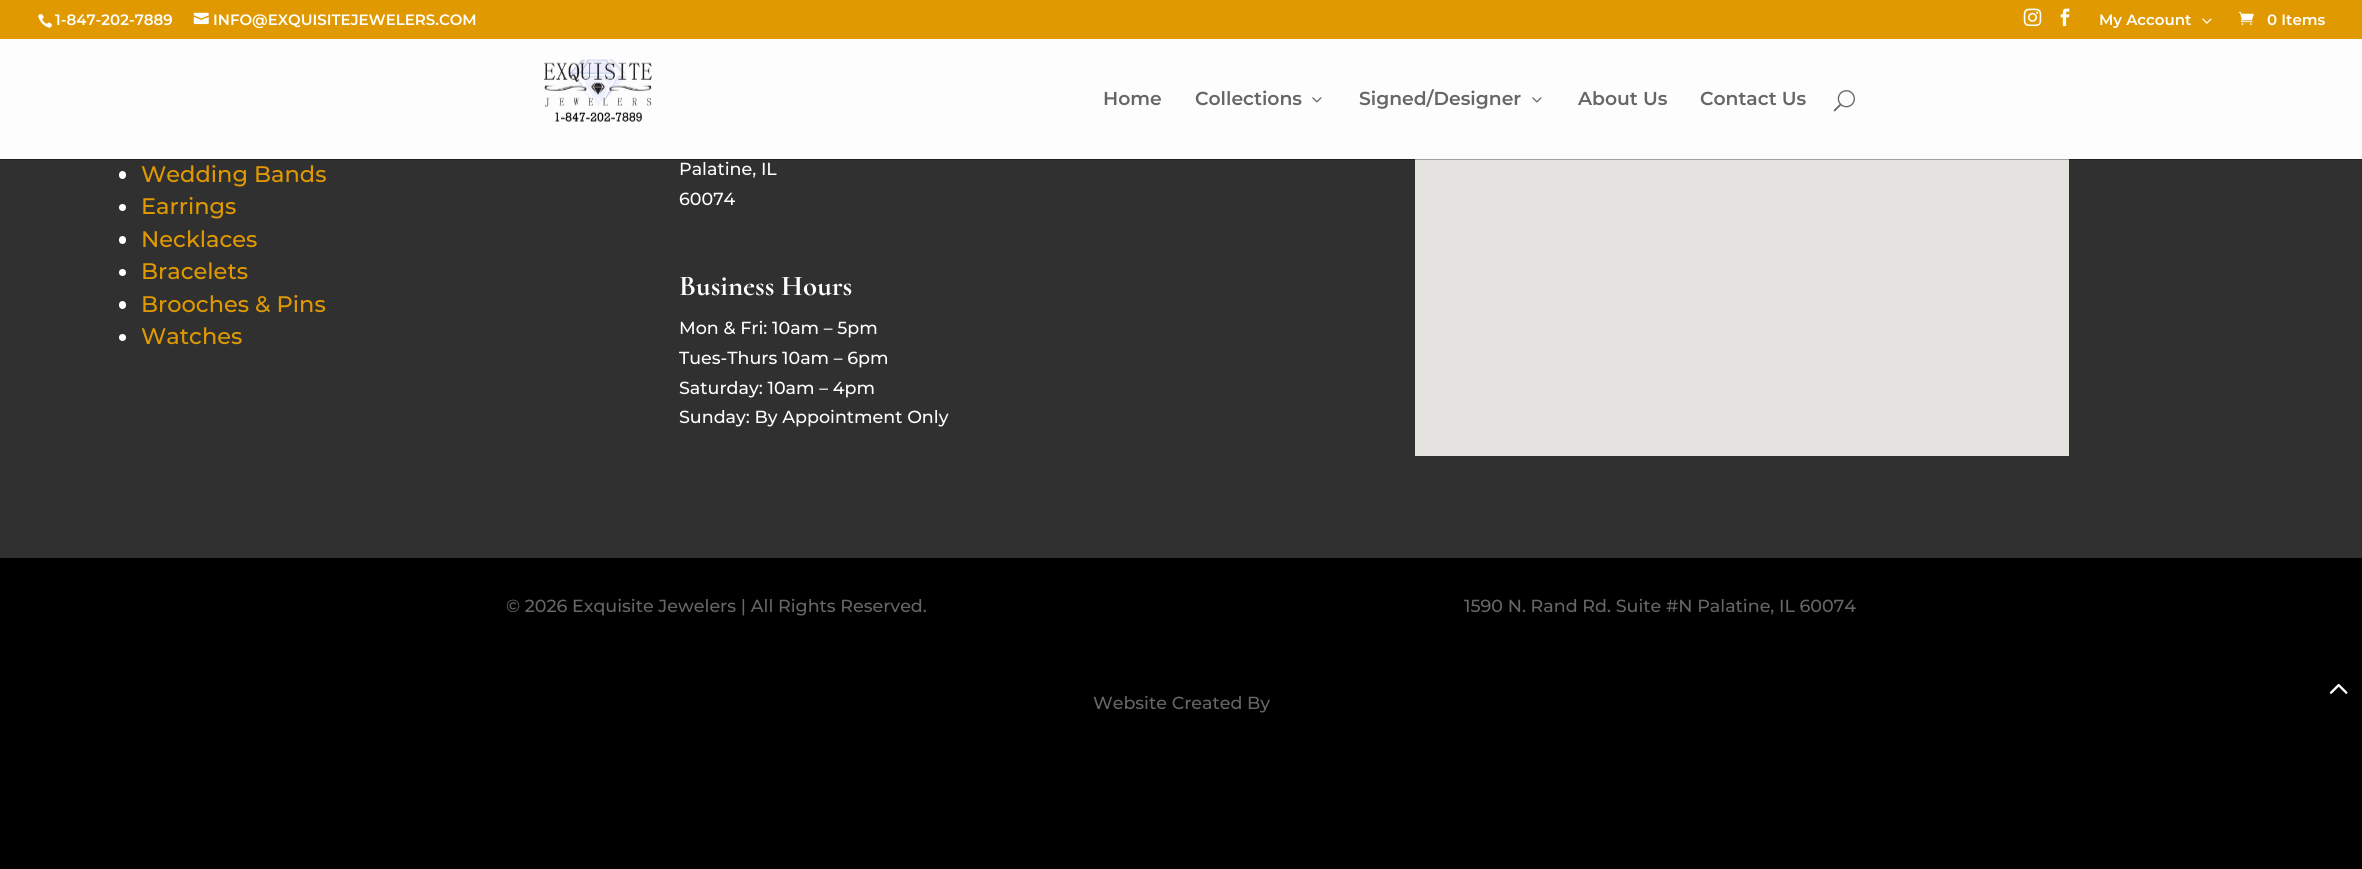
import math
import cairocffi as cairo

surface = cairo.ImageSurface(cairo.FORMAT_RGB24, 2362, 869)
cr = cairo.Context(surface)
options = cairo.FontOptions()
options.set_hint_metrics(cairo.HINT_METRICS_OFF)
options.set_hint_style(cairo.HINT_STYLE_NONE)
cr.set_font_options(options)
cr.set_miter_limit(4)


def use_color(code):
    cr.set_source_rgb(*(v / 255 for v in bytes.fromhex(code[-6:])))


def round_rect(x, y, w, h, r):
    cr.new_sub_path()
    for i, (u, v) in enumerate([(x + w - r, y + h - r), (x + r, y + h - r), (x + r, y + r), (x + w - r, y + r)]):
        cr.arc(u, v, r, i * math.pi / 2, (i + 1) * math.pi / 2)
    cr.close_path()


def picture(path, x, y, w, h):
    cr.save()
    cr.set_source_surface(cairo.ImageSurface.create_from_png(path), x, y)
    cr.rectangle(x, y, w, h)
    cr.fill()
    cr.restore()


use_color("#303030")
cr.paint()
use_color("#e09900")
cr.rectangle(0, 0, 2362, 39)
cr.fill()
picture("img1.png", 38, 14, 14, 14)
cr.select_font_face("Montserrat SemiBold")
cr.set_font_size(15)
use_color("#ffffff")
cr.move_to(55, 25)
cr.show_text("1-847-202-7889")
picture("img2.png", 193, 12, 16, 13)
cr.move_to(213, 25)
cr.show_text("INFO@EXQUISITEJEWELERS.COM")
picture("img3.png", 2023, 8, 19, 19)
picture("img4.png", 2060, 8, 10, 19)
cr.move_to(2099, 25)
cr.show_text("My Account")
picture("img5.png", 2202, 18, 10, 6)
picture("img6.png", 2238, 11, 16, 14)
cr.move_to(2267, 25)
cr.show_text("0 Items")
use_color("#e5e3df")
cr.rectangle(1415, 159, 654, 297)
cr.fill()
cr.set_source_rgba(0, 0, 0, 0.3)
cr.new_path()
cr.move_to(0, 159)
cr.line_to(0, 160)
cr.line_to(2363, 160)
cr.line_to(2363, 40)
cr.line_to(2362, 40)
cr.line_to(2362, 159)
cr.close_path()
cr.fill()
use_color("#fdfdfd")
cr.rectangle(0, 39, 2362, 120)
cr.fill()
picture("img7.png", 544, 59, 108, 63)
cr.set_font_size(18.75)
use_color("#666666")
cr.move_to(1103, 105)
cr.show_text("Home")
cr.move_to(1195, 105)
cr.show_text("Collections")
picture("img8.png", 1312, 97, 10, 6)
cr.move_to(1359, 105)
cr.show_text("Signed/Designer")
picture("img9.png", 1532, 97, 10, 6)
cr.move_to(1578, 105)
cr.show_text("About Us")
cr.move_to(1700, 105)
cr.show_text("Contact Us")
picture("img10.png", 1833, 90, 22, 22)
use_color("#ffffff")
round_rect(119, 171, 7, 8, 3.5)
cr.fill()
cr.select_font_face("Montserrat Medium")
cr.set_font_size(22.5)
use_color("#e09900")
cr.move_to(141, 182)
cr.show_text("Wedding Bands")
use_color("#ffffff")
cr.new_path()
cr.arc(122.5, 207.5, 3.5, 0, 2 * math.pi)
cr.fill()
use_color("#e09900")
cr.move_to(141, 214)
cr.show_text("Earrings")
use_color("#ffffff")
round_rect(119, 236, 7, 8, 3.5)
cr.fill()
use_color("#e09900")
cr.move_to(141, 247)
cr.show_text("Necklaces")
use_color("#ffffff")
cr.new_path()
cr.arc(122.5, 272.5, 3.5, 0, 2 * math.pi)
cr.fill()
use_color("#e09900")
cr.move_to(141, 279)
cr.show_text("Bracelets")
use_color("#ffffff")
round_rect(119, 301, 7, 8, 3.5)
cr.fill()
use_color("#e09900")
cr.move_to(141, 312)
cr.show_text("Brooches & Pins")
use_color("#ffffff")
cr.new_path()
cr.arc(122.5, 337.5, 3.5, 0, 2 * math.pi)
cr.fill()
use_color("#e09900")
cr.move_to(141, 344)
cr.show_text("Watches")
cr.set_font_size(17.5)
use_color("#ffffff")
cr.move_to(679, 175)
cr.show_text("Palatine, IL")
cr.move_to(679, 205)
cr.show_text("60074")
cr.select_font_face("Cormorant", cairo.FONT_SLANT_NORMAL, cairo.FONT_WEIGHT_BOLD)
cr.set_font_size(28.75)
cr.move_to(679, 295)
cr.show_text("Business Hours")
cr.select_font_face("Montserrat Medium")
cr.set_font_size(17.5)
cr.move_to(679, 334)
cr.show_text("Mon & Fri: 10am – 5pm")
cr.move_to(679, 364)
cr.show_text("Tues-Thurs 10am – 6pm")
cr.move_to(679, 394)
cr.show_text("Saturday: 10am – 4pm")
cr.move_to(679, 423)
cr.show_text("Sunday: By Appointment Only")
use_color("#000000")
cr.rectangle(0, 558, 2362, 311)
cr.fill()
use_color("#666666")
cr.move_to(506, 612)
cr.show_text("© 2026 Exquisite Jewelers | All Rights Reserved.")
cr.move_to(1464, 612)
cr.show_text("1590 N. Rand Rd. Suite #N Palatine, IL 60074")
cr.move_to(1093, 709)
cr.show_text("Website Created By")
picture("img11.png", 2329, 683, 19, 11)
surface.write_to_png("result.png")
